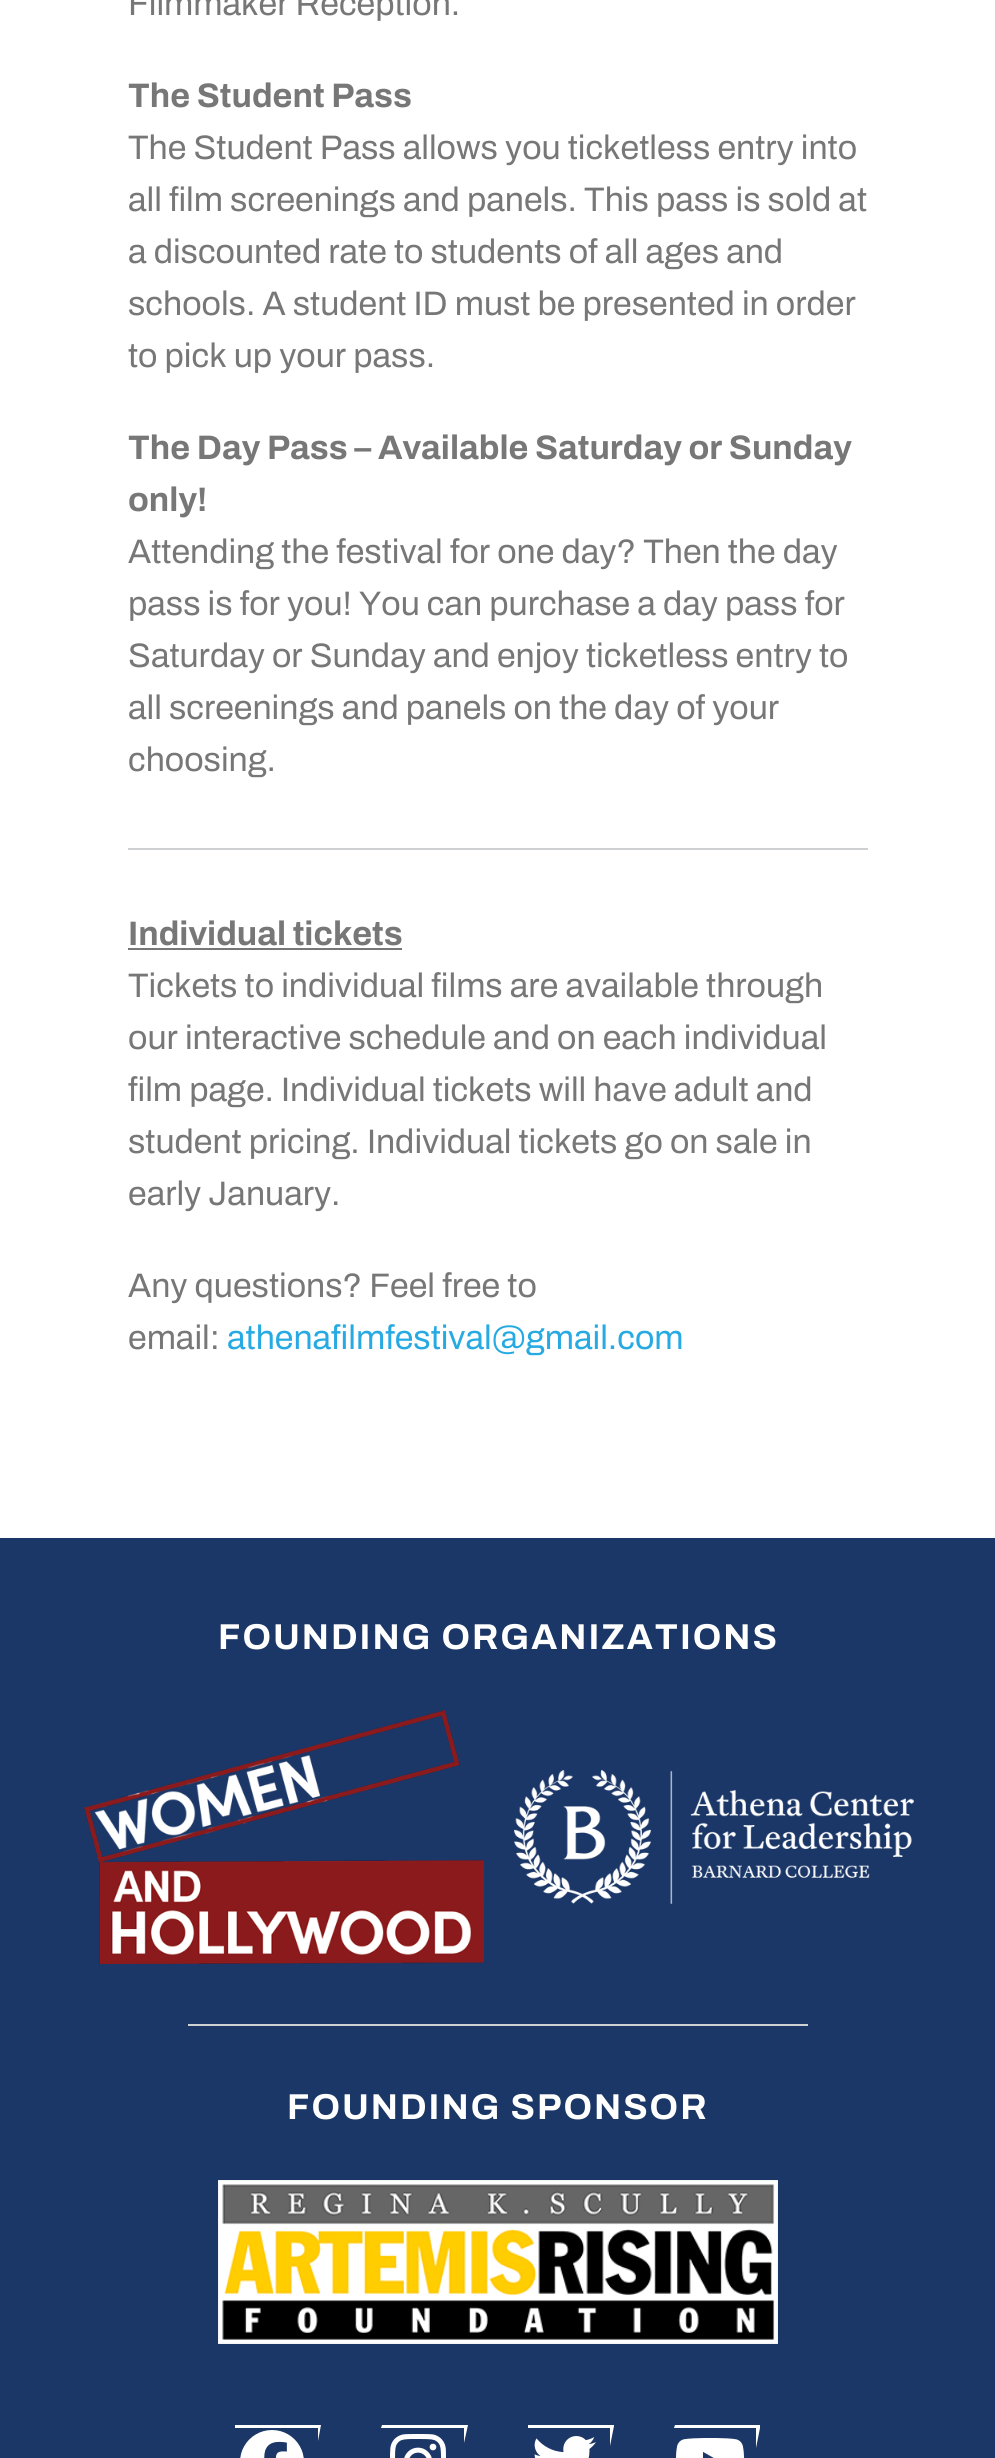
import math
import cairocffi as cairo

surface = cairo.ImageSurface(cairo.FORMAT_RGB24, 995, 2458)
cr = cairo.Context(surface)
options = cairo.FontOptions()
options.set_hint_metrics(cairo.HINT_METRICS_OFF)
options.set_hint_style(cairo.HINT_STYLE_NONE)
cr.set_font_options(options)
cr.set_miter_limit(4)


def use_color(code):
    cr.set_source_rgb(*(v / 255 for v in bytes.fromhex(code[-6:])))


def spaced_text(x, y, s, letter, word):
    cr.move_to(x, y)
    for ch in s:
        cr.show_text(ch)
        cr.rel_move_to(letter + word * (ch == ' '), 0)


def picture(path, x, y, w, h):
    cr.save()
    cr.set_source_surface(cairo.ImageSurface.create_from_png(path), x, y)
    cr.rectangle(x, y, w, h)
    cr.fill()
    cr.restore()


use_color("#ffffff")
cr.paint()
cr.select_font_face("Archivo")
cr.set_font_size(34)
use_color("#777777")
cr.move_to(128, 15)
cr.show_text("Filmmaker Reception.")
cr.select_font_face("Archivo", cairo.FONT_SLANT_NORMAL, cairo.FONT_WEIGHT_BOLD)
cr.move_to(128, 107)
cr.show_text("The Student Pass")
cr.select_font_face("Archivo")
cr.move_to(128, 159)
cr.show_text("The Student Pass allows you ticketless entry into")
cr.move_to(128, 211)
cr.show_text("all film screenings and panels. This pass is sold at")
cr.move_to(128, 263)
cr.show_text("a discounted rate to students of all ages and")
cr.move_to(128, 315)
cr.show_text("schools. A student ID must be presented in order")
cr.move_to(128, 367)
cr.show_text("to pick up your pass.")
cr.select_font_face("Archivo", cairo.FONT_SLANT_NORMAL, cairo.FONT_WEIGHT_BOLD)
cr.move_to(128, 459)
cr.show_text("The Day Pass – Available Saturday or Sunday")
cr.move_to(128, 511)
cr.show_text("only!")
cr.select_font_face("Archivo")
cr.move_to(128, 563)
cr.show_text("Attending the festival for one day? Then the day")
cr.move_to(128, 615)
cr.show_text("pass is for you! You can purchase a day pass for")
cr.move_to(128, 667)
cr.show_text("Saturday or Sunday and enjoy ticketless entry to")
cr.move_to(128, 719)
cr.show_text("all screenings and panels on the day of your")
cr.move_to(128, 771)
cr.show_text("choosing.")
use_color("#cfd0d2")
cr.rectangle(128, 848, 740, 2)
cr.fill()
cr.select_font_face("Archivo", cairo.FONT_SLANT_NORMAL, cairo.FONT_WEIGHT_BOLD)
use_color("#777777")
cr.move_to(128, 945)
cr.show_text("Individual tickets")
cr.rectangle(128, 948, 274, 2)
cr.fill()
cr.select_font_face("Archivo")
cr.move_to(128, 997)
cr.show_text("Tickets to individual films are available through")
cr.move_to(128, 1049)
cr.show_text("our interactive schedule and on each individual")
cr.move_to(128, 1101)
cr.show_text("film page. Individual tickets will have adult and")
cr.move_to(128, 1153)
cr.show_text("student pricing. Individual tickets go on sale in")
cr.move_to(128, 1205)
cr.show_text("early January.")
cr.move_to(128, 1297)
cr.show_text("Any questions? Feel free to")
cr.move_to(128, 1349)
cr.show_text("email:")
use_color("#27aae1")
cr.move_to(227, 1349)
cr.show_text("athenafilmfestival@gmail.com")
use_color("#1b3767")
cr.rectangle(0, 1538, 995, 920)
cr.fill()
cr.select_font_face("Archivo", cairo.FONT_SLANT_NORMAL, cairo.FONT_WEIGHT_BOLD)
cr.set_font_size(36)
use_color("#ffffff")
spaced_text(218, 1649, "FOUNDING ORGANIZATIONS", 2, 0)
picture("img1.png", 84, 1710, 400, 254)
picture("img2.png", 514, 1770, 400, 134)
use_color("#cfd0d2")
cr.rectangle(188, 2024, 620, 2)
cr.fill()
use_color("#ffffff")
spaced_text(287, 2119, "FOUNDING SPONSOR", 2, 0)
picture("img3.png", 218, 2180, 560, 164)
cr.set_fill_rule(cairo.FILL_RULE_EVEN_ODD)
cr.new_path()
cr.move_to(303, 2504)
cr.line_to(222, 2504)
cr.line_to(222, 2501)
cr.line_to(226, 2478)
cr.line_to(226, 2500)
cr.line_to(306, 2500)
cr.line_to(305, 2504)
cr.close_path()
cr.move_to(235, 2425)
cr.line_to(235, 2428)
cr.line_to(318, 2428)
cr.line_to(318, 2441)
cr.line_to(321, 2425)
cr.close_path()
cr.fill()
picture("img4.png", 240, 2430, 64, 28)
cr.new_path()
cr.move_to(450, 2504)
cr.line_to(368, 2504)
cr.line_to(372, 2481)
cr.line_to(372, 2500)
cr.line_to(453, 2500)
cr.line_to(452, 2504)
cr.close_path()
cr.move_to(382, 2425)
cr.line_to(381, 2428)
cr.line_to(464, 2428)
cr.line_to(464, 2443)
cr.line_to(468, 2425)
cr.close_path()
cr.fill()
picture("img5.png", 390, 2434, 56, 24)
cr.new_path()
cr.move_to(596, 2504)
cr.line_to(514, 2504)
cr.line_to(518, 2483)
cr.line_to(518, 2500)
cr.line_to(599, 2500)
cr.line_to(598, 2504)
cr.close_path()
cr.move_to(528, 2425)
cr.line_to(614, 2425)
cr.line_to(614, 2426)
cr.line_to(610, 2446)
cr.line_to(610, 2428)
cr.line_to(528, 2428)
cr.close_path()
cr.fill()
picture("img6.png", 534, 2436, 62, 22)
cr.new_path()
cr.move_to(743, 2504)
cr.line_to(661, 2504)
cr.line_to(664, 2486)
cr.line_to(664, 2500)
cr.line_to(745, 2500)
cr.line_to(745, 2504)
cr.close_path()
cr.move_to(675, 2425)
cr.line_to(760, 2425)
cr.line_to(760, 2428)
cr.line_to(756, 2448)
cr.line_to(756, 2428)
cr.line_to(674, 2428)
cr.close_path()
cr.fill()
picture("img7.png", 675, 2438, 70, 20)
surface.write_to_png("result.png")
